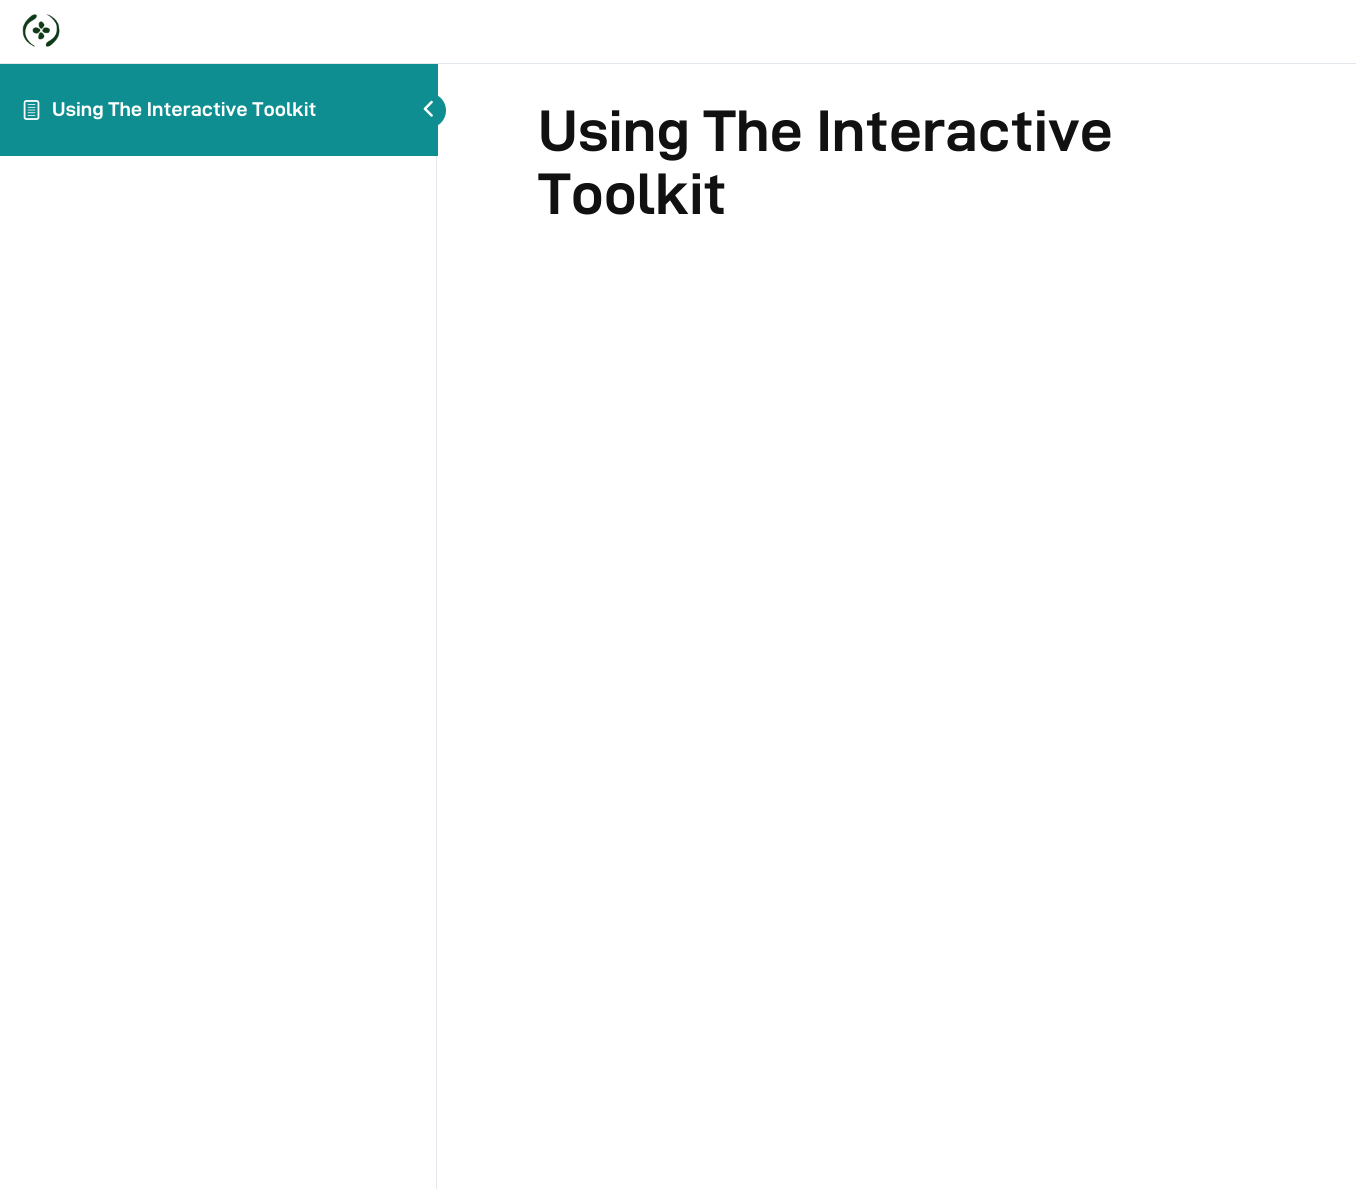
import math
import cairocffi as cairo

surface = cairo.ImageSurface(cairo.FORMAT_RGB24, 1356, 1189)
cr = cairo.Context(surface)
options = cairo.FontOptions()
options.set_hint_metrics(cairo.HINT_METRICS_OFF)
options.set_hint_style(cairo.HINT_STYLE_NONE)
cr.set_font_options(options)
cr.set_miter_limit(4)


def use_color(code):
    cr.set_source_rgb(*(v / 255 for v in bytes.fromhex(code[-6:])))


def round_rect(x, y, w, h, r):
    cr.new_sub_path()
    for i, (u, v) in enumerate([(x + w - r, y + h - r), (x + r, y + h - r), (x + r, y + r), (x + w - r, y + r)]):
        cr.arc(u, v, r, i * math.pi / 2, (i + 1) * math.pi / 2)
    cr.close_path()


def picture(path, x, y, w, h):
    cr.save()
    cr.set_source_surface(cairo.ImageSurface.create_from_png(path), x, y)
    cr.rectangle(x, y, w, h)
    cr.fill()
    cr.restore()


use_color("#ffffff")
cr.paint()
use_color("#e2e7ed")
cr.rectangle(436, 156, 1, 1033)
cr.fill()
use_color("#0e8e90")
cr.rectangle(0, 64, 438, 92)
cr.fill()
picture("img1.png", 23, 100, 17, 20)
cr.select_font_face("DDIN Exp", cairo.FONT_SLANT_NORMAL, cairo.FONT_WEIGHT_BOLD)
cr.set_font_size(20)
use_color("#ffffff")
cr.move_to(52, 116)
cr.show_text("Using The Interactive Toolkit")
use_color("#0e8e90")
round_rect(410, 93, 36, 35, 17.5)
cr.fill()
picture("img2.png", 423, 100, 10, 17)
use_color("#e2e7ed")
cr.rectangle(0, 63, 1356, 1)
cr.fill()
picture("img3.png", 22, 14, 38, 33)
cr.set_font_size(58.75)
use_color("#111111")
cr.move_to(538, 151)
cr.show_text("Using The Interactive")
cr.move_to(538, 214)
cr.show_text("Toolkit")
surface.write_to_png("result.png")
